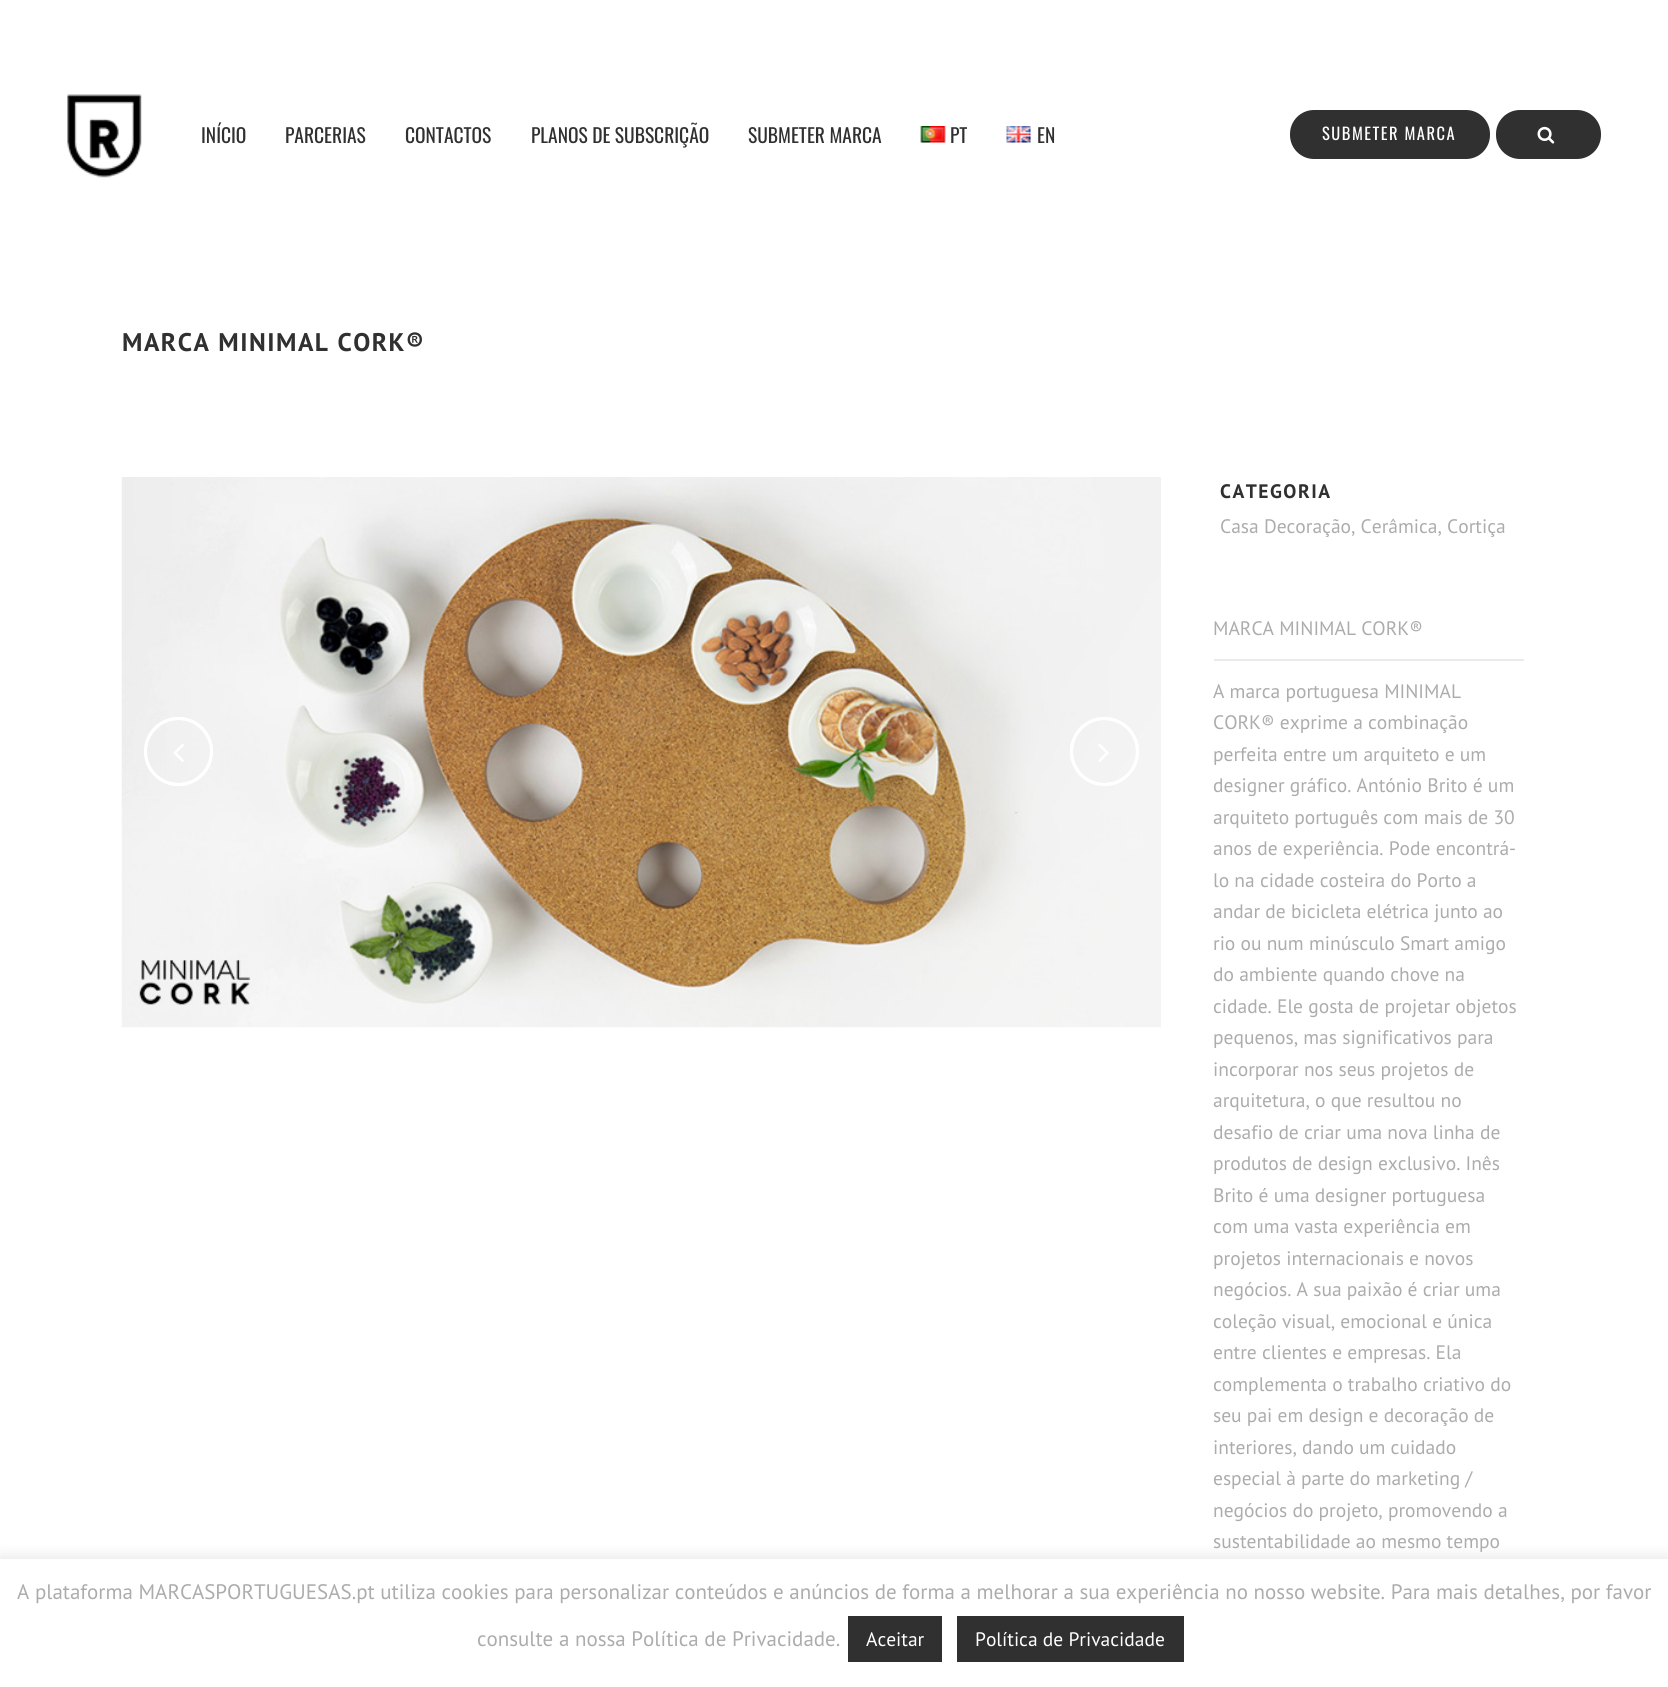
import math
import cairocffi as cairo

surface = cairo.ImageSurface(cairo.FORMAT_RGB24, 1668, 1687)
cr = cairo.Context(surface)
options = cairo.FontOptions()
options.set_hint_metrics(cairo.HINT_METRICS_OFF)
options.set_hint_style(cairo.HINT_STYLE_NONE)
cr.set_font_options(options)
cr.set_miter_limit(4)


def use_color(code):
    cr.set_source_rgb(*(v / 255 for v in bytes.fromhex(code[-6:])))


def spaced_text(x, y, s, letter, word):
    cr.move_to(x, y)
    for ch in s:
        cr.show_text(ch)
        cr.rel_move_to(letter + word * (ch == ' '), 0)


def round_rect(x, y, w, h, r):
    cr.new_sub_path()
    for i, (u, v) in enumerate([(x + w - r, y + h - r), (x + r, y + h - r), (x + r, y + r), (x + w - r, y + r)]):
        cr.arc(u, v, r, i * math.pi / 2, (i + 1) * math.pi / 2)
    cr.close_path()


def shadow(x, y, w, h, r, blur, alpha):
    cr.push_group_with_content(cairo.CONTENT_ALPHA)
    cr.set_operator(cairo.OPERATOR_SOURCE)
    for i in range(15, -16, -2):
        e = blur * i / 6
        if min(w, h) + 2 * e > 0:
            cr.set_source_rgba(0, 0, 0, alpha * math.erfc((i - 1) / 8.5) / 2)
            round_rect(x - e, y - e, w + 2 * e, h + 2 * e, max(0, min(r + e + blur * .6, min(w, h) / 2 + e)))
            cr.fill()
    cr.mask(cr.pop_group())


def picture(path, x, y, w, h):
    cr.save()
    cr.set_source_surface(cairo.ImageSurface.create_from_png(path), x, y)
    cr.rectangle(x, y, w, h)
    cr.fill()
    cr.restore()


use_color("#ffffff")
cr.paint()
picture("img1.png", 67, 94, 75, 84)
cr.select_font_face("Oswald")
cr.set_font_size(19.5)
use_color("#303030")
cr.move_to(201, 143)
cr.show_text("INÍCIO")
cr.move_to(285, 143)
cr.show_text("PARCERIAS")
cr.move_to(405, 143)
cr.show_text("CONTACTOS")
cr.move_to(531, 143)
cr.show_text("PLANOS DE SUBSCRIÇÃO")
cr.move_to(748, 143)
cr.show_text("SUBMETER MARCA")
picture("img2.png", 920, 126, 26, 17)
cr.move_to(950, 143)
cr.show_text("PT")
picture("img3.png", 1006, 126, 25, 17)
cr.move_to(1037, 143)
cr.show_text("EN")
round_rect(1290, 110, 200, 49, 24)
cr.fill()
cr.set_font_size(16.5)
use_color("#ffffff")
spaced_text(1322, 140, "SUBMETER MARCA", 1.5, 0)
use_color("#303030")
round_rect(1496, 110, 105, 49, 24)
cr.fill()
picture("img4.png", 1537, 126, 18, 18)
cr.select_font_face("PT Sans", cairo.FONT_SLANT_NORMAL, cairo.FONT_WEIGHT_BOLD)
cr.set_font_size(25.5)
spaced_text(122, 351, "MARCA MINIMAL CORK®", 1.5, 0)
picture("img5.png", 121, 477, 1040, 551)
cr.arc(178.5, 751.5, 33, 0, 2 * math.pi)
use_color("#ffffff")
cr.set_line_width(3)
cr.stroke()
picture("img6.png", 173, 744, 11, 18)
cr.arc(1104.5, 751.5, 33, 0, 2 * math.pi)
cr.stroke()
picture("img7.png", 1098, 744, 11, 18)
cr.arc(178.5, 751.5, 33, 0, 2 * math.pi)
cr.stroke()
cr.arc(1104.5, 751.5, 33, 0, 2 * math.pi)
cr.stroke()
cr.set_font_size(19.5)
use_color("#303030")
spaced_text(1220, 498, "CATEGORIA", 1.5, 0)
cr.select_font_face("PT Sans")
use_color("#acacac")
cr.move_to(1220, 533)
cr.show_text("Casa Decoração, Cerâmica, Cortiça")
cr.move_to(1213, 635)
cr.show_text("MARCA MINIMAL CORK®")
use_color("#eaeaea")
cr.rectangle(1214, 659, 310, 2)
cr.fill()
use_color("#acacac")
cr.move_to(1213, 698)
cr.show_text("A marca portuguesa MINIMAL")
cr.move_to(1213, 729)
cr.show_text("CORK® exprime a combinação")
cr.move_to(1213, 761)
cr.show_text("perfeita entre um arquiteto e um")
cr.move_to(1213, 792)
cr.show_text("designer gráfico. António Brito é um")
cr.move_to(1213, 824)
cr.show_text("arquiteto português com mais de 30")
cr.move_to(1213, 855)
cr.show_text("anos de experiência. Pode encontrá-")
cr.move_to(1213, 887)
cr.show_text("lo na cidade costeira do Porto a")
cr.move_to(1213, 918)
cr.show_text("andar de bicicleta elétrica junto ao")
cr.move_to(1213, 950)
cr.show_text("rio ou num minúsculo Smart amigo")
cr.move_to(1213, 981)
cr.show_text("do ambiente quando chove na")
cr.move_to(1213, 1013)
cr.show_text("cidade. Ele gosta de projetar objetos")
cr.move_to(1213, 1044)
cr.show_text("pequenos, mas significativos para")
cr.move_to(1213, 1076)
cr.show_text("incorporar nos seus projetos de")
cr.move_to(1213, 1107)
cr.show_text("arquitetura, o que resultou no")
cr.move_to(1213, 1139)
cr.show_text("desafio de criar uma nova linha de")
cr.move_to(1213, 1170)
cr.show_text("produtos de design exclusivo. Inês")
cr.move_to(1213, 1202)
cr.show_text("Brito é uma designer portuguesa")
cr.move_to(1213, 1233)
cr.show_text("com uma vasta experiência em")
cr.move_to(1213, 1265)
cr.show_text("projetos internacionais e novos")
cr.move_to(1213, 1296)
cr.show_text("negócios. A sua paixão é criar uma")
cr.move_to(1213, 1328)
cr.show_text("coleção visual, emocional e única")
cr.move_to(1213, 1359)
cr.show_text("entre clientes e empresas. Ela")
cr.move_to(1213, 1391)
cr.show_text("complementa o trabalho criativo do")
cr.move_to(1213, 1422)
cr.show_text("seu pai em design e decoração de")
cr.move_to(1213, 1454)
cr.show_text("interiores, dando um cuidado")
cr.move_to(1213, 1485)
cr.show_text("especial à parte do marketing /")
cr.move_to(1213, 1517)
cr.show_text("negócios do projeto, promovendo a")
cr.move_to(1213, 1548)
cr.show_text("sustentabilidade ao mesmo tempo")
use_color("#acabab")
shadow(0, 1557, 1668, 129, 0, 7.5, 0.3)
use_color("#ffffff")
cr.rectangle(0, 1559, 1668, 128)
cr.fill()
cr.set_font_size(21)
use_color("#acacac")
cr.move_to(17, 1599)
cr.show_text("A plataforma MARCASPORTUGUESAS.pt utiliza cookies para personalizar conteúdos e anúncios de forma a melhorar a sua experiência no nosso website. Para mais detalhes, por favor")
cr.move_to(477, 1646)
cr.show_text("consulte a nossa Política de Privacidade.")
use_color("#303030")
cr.rectangle(848, 1616, 94, 46)
cr.fill()
cr.set_font_size(19.5)
use_color("#ffffff")
cr.move_to(866, 1646)
cr.show_text("Aceitar")
use_color("#303030")
cr.rectangle(957, 1616, 227, 46)
cr.fill()
use_color("#ffffff")
cr.move_to(975, 1646)
cr.show_text("Política de Privacidade")
surface.write_to_png("result.png")
